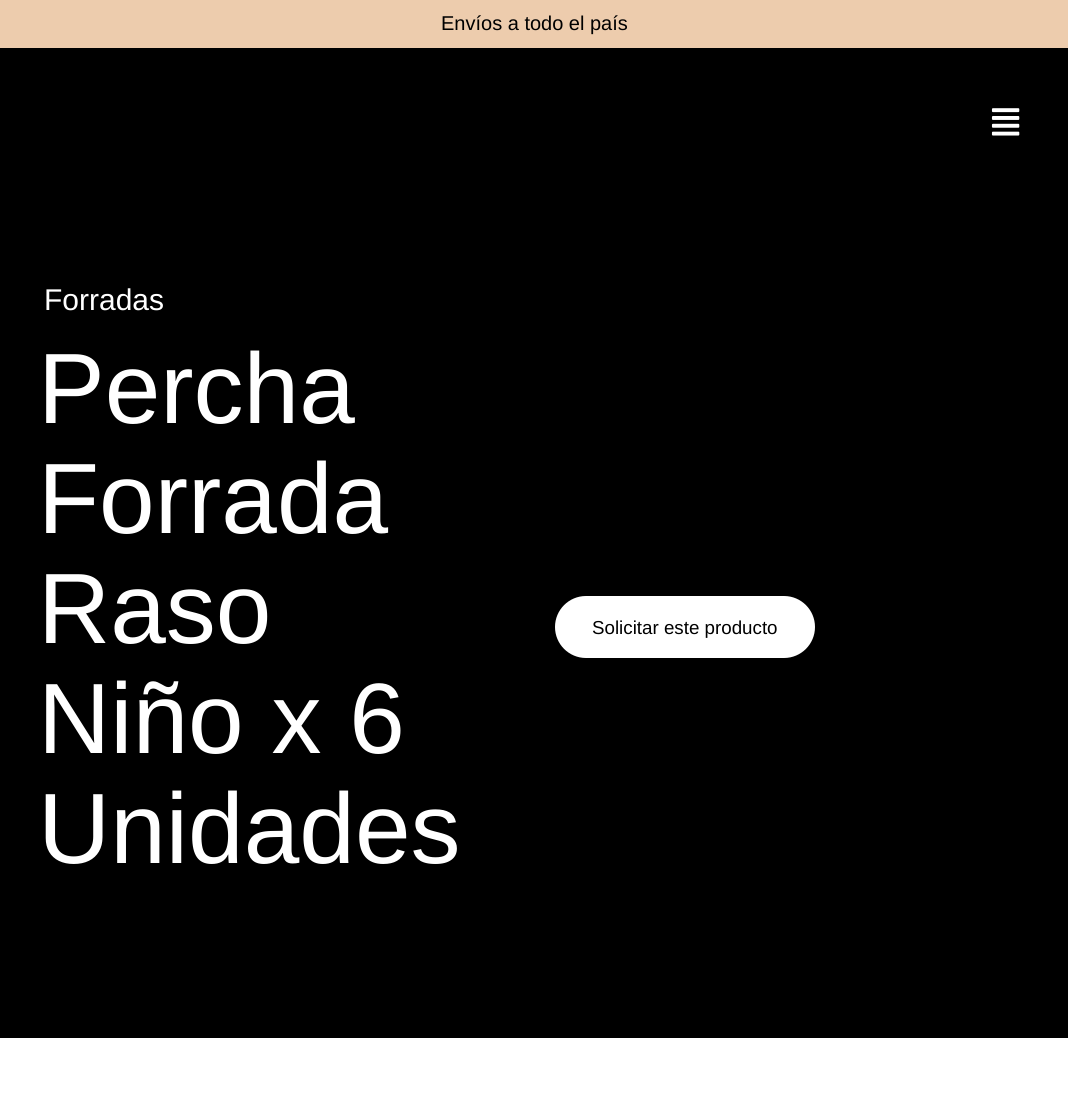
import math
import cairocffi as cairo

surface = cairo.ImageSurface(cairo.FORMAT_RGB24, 1068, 1095)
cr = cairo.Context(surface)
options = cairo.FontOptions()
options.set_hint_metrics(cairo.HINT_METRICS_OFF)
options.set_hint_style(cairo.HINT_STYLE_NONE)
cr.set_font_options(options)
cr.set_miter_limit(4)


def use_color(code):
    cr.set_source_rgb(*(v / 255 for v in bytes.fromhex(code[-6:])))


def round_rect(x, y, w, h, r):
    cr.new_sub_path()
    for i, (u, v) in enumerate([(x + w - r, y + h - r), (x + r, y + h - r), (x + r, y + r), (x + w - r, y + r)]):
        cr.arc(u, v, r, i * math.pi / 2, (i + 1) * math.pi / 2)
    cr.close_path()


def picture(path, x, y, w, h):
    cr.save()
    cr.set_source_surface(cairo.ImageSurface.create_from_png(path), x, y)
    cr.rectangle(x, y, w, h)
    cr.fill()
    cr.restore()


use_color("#ffffff")
cr.paint()
use_color("#edccad")
cr.rectangle(0, 0, 1068, 48)
cr.fill()
cr.select_font_face("Liberation Sans")
cr.set_font_size(20)
use_color("#000000")
cr.move_to(441, 30)
cr.show_text("Envíos a todo el país")
cr.rectangle(0, 48, 1068, 990)
cr.fill()
picture("img1.png", 991, 108, 29, 28)
cr.set_font_size(30)
use_color("#ffffff")
cr.move_to(44, 310)
cr.show_text("Forradas")
cr.set_font_size(100)
cr.move_to(38, 423)
cr.show_text("Percha")
cr.move_to(38, 533)
cr.show_text("Forrada")
cr.move_to(38, 643)
cr.show_text("Raso")
cr.move_to(38, 753)
cr.show_text("Niño x 6")
cr.move_to(38, 863)
cr.show_text("Unidades")
round_rect(555, 596, 260, 62, 31)
cr.fill()
cr.set_font_size(18.75)
use_color("#000000")
cr.move_to(592, 634)
cr.show_text("Solicitar este producto")
surface.write_to_png("result.png")
